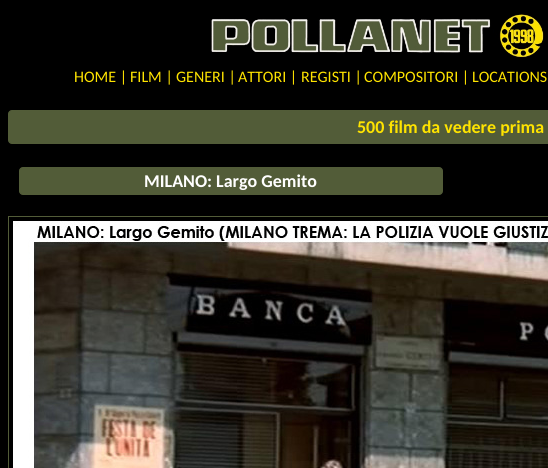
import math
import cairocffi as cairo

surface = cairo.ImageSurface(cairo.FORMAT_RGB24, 548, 468)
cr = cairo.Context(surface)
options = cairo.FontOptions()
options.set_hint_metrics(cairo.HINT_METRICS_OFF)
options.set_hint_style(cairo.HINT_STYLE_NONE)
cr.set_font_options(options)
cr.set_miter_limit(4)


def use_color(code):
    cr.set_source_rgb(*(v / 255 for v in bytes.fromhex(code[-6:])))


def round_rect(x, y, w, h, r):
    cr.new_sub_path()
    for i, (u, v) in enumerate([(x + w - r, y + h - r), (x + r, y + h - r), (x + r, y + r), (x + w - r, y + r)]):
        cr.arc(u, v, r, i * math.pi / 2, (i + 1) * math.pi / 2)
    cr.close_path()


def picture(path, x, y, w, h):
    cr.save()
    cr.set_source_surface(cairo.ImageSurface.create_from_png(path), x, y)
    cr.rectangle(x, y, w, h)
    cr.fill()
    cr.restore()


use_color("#000000")
cr.paint()
picture("img1.png", 211, 14, 333, 44)
cr.select_font_face("Carlito")
cr.set_font_size(16)
use_color("#fee300")
cr.move_to(74, 82)
cr.show_text("HOME |")
cr.move_to(130, 82)
cr.show_text("FILM |")
cr.move_to(176, 82)
cr.show_text("GENERI |")
cr.move_to(238, 82)
cr.show_text("ATTORI |")
cr.move_to(301, 82)
cr.show_text("REGISTI |")
cr.move_to(364, 82)
cr.show_text("COMPOSITORI |")
cr.move_to(472, 82)
cr.show_text("LOCATIONS")
use_color("#525c38")
round_rect(8.5, 110.5, 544, 33, 3.5)
cr.fill_preserve()
cr.set_line_width(1)
cr.stroke()
cr.select_font_face("Carlito", cairo.FONT_SLANT_NORMAL, cairo.FONT_WEIGHT_BOLD)
cr.set_font_size(18)
use_color("#fee300")
cr.move_to(357, 133)
cr.show_text("500 film da vedere prima")
use_color("#525c38")
round_rect(19.5, 167.5, 423, 27, 3.5)
cr.fill_preserve()
cr.stroke()
use_color("#ffffff")
cr.move_to(144, 187)
cr.show_text("MILANO: Largo Gemito")
cr.rectangle(8.5, 216.5, 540, 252)
use_color("#525c38")
cr.stroke()
picture("img2.png", 13, 220, 535, 248)
surface.write_to_png("result.png")
